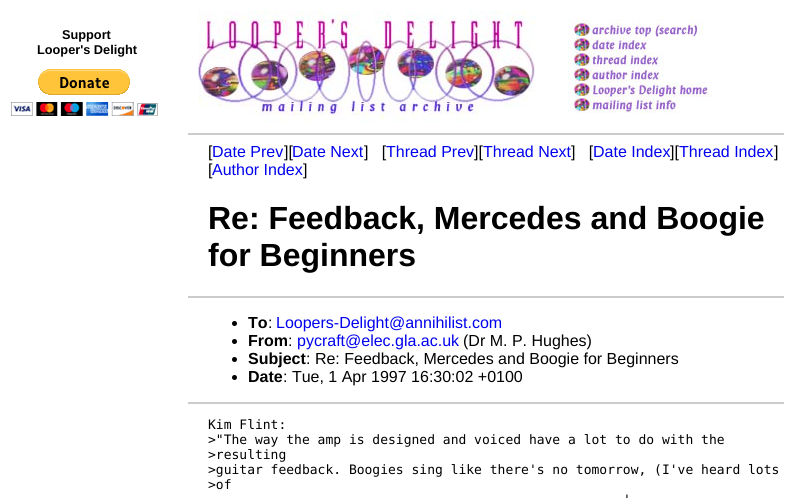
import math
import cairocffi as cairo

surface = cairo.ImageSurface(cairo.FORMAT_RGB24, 792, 501)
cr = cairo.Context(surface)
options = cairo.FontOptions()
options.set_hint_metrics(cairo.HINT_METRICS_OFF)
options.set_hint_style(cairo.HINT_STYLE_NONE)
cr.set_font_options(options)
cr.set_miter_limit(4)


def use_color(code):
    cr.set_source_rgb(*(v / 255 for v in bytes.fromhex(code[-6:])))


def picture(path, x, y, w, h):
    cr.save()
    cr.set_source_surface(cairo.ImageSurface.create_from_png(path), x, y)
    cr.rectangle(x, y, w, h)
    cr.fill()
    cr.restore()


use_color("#ffffff")
cr.paint()
cr.select_font_face("Liberation Sans", cairo.FONT_SLANT_NORMAL, cairo.FONT_WEIGHT_BOLD)
cr.set_font_size(12.75)
use_color("#000000")
cr.move_to(62, 39)
cr.show_text("Support")
cr.move_to(37, 54)
cr.show_text("Looper's Delight")
picture("img1.png", 11, 69, 147, 47)
picture("img2.png", 197, 11, 338, 111)
picture("img3.png", 568, 19, 136, 18)
picture("img4.png", 568, 37, 80, 15)
picture("img5.png", 568, 52, 96, 15)
picture("img6.png", 568, 67, 96, 15)
picture("img7.png", 568, 82, 144, 15)
picture("img8.png", 568, 97, 112, 16)
use_color("#cccccc")
cr.rectangle(188, 133, 596, 2)
cr.fill()
cr.select_font_face("Liberation Sans")
cr.set_font_size(16)
use_color("#000000")
cr.move_to(208, 157)
cr.show_text("[")
use_color("#0000ee")
cr.move_to(212, 157)
cr.show_text("Date Prev")
use_color("#000000")
cr.move_to(284, 157)
cr.show_text("][")
use_color("#0000ee")
cr.move_to(292, 157)
cr.show_text("Date Next")
use_color("#000000")
cr.move_to(364, 157)
cr.show_text("]   [")
use_color("#0000ee")
cr.move_to(386, 157)
cr.show_text("Thread Prev")
use_color("#000000")
cr.move_to(474, 157)
cr.show_text("][")
use_color("#0000ee")
cr.move_to(483, 157)
cr.show_text("Thread Next")
use_color("#000000")
cr.move_to(571, 157)
cr.show_text("]   [")
use_color("#0000ee")
cr.move_to(593, 157)
cr.show_text("Date Index")
use_color("#000000")
cr.move_to(670, 157)
cr.show_text("][")
use_color("#0000ee")
cr.move_to(679, 157)
cr.show_text("Thread Index")
use_color("#000000")
cr.move_to(774, 157)
cr.show_text("]")
cr.move_to(208, 175)
cr.show_text("[")
use_color("#0000ee")
cr.move_to(212, 175)
cr.show_text("Author Index")
use_color("#000000")
cr.move_to(303, 175)
cr.show_text("]")
cr.select_font_face("Liberation Sans", cairo.FONT_SLANT_NORMAL, cairo.FONT_WEIGHT_BOLD)
cr.set_font_size(32)
cr.move_to(208, 229)
cr.show_text("Re: Feedback, Mercedes and Boogie")
cr.move_to(208, 266)
cr.show_text("for Beginners")
use_color("#cccccc")
cr.rectangle(188, 296, 596, 2)
cr.fill()
use_color("#000000")
cr.arc(234.5, 323.5, 2.5, 0, 2 * math.pi)
cr.fill()
cr.set_font_size(16)
cr.move_to(248, 328)
cr.show_text("To")
cr.select_font_face("Liberation Sans")
cr.move_to(268, 328)
cr.show_text(":")
use_color("#0000ee")
cr.move_to(276, 328)
cr.show_text("Loopers-Delight@annihilist.com")
use_color("#000000")
cr.new_path()
cr.arc(234.5, 341.5, 2.5, 0, 2 * math.pi)
cr.fill()
cr.select_font_face("Liberation Sans", cairo.FONT_SLANT_NORMAL, cairo.FONT_WEIGHT_BOLD)
cr.move_to(248, 346)
cr.show_text("From")
cr.select_font_face("Liberation Sans")
cr.move_to(288, 346)
cr.show_text(":")
use_color("#0000ee")
cr.move_to(297, 346)
cr.show_text("pycraft@elec.gla.ac.uk")
use_color("#000000")
cr.move_to(463, 346)
cr.show_text("(Dr M. P. Hughes)")
cr.new_path()
cr.arc(234.5, 359.5, 2.5, 0, 2 * math.pi)
cr.fill()
cr.select_font_face("Liberation Sans", cairo.FONT_SLANT_NORMAL, cairo.FONT_WEIGHT_BOLD)
cr.move_to(248, 364)
cr.show_text("Subject")
cr.select_font_face("Liberation Sans")
cr.move_to(306, 364)
cr.show_text(": Re: Feedback, Mercedes and Boogie for Beginners")
cr.new_path()
cr.arc(234.5, 377.5, 2.5, 0, 2 * math.pi)
cr.fill()
cr.select_font_face("Liberation Sans", cairo.FONT_SLANT_NORMAL, cairo.FONT_WEIGHT_BOLD)
cr.move_to(248, 382)
cr.show_text("Date")
cr.select_font_face("Liberation Sans")
cr.move_to(283, 382)
cr.show_text(": Tue, 1 Apr 1997 16:30:02 +0100")
use_color("#cccccc")
cr.rectangle(188, 402, 596, 2)
cr.fill()
cr.select_font_face("DejaVu Sans Mono")
cr.set_font_size(13)
use_color("#000000")
cr.move_to(208, 429)
cr.show_text("Kim Flint:")
cr.move_to(208, 444)
cr.show_text(">\"The way the amp is designed and voiced have a lot to do with the")
cr.move_to(208, 459)
cr.show_text(">resulting")
cr.move_to(208, 474)
cr.show_text(">guitar feedback. Boogies sing like there's no tomorrow, (I've heard lots")
cr.move_to(208, 489)
cr.show_text(">of")
cr.move_to(623, 504)
cr.show_text("'")
surface.write_to_png("result.png")
